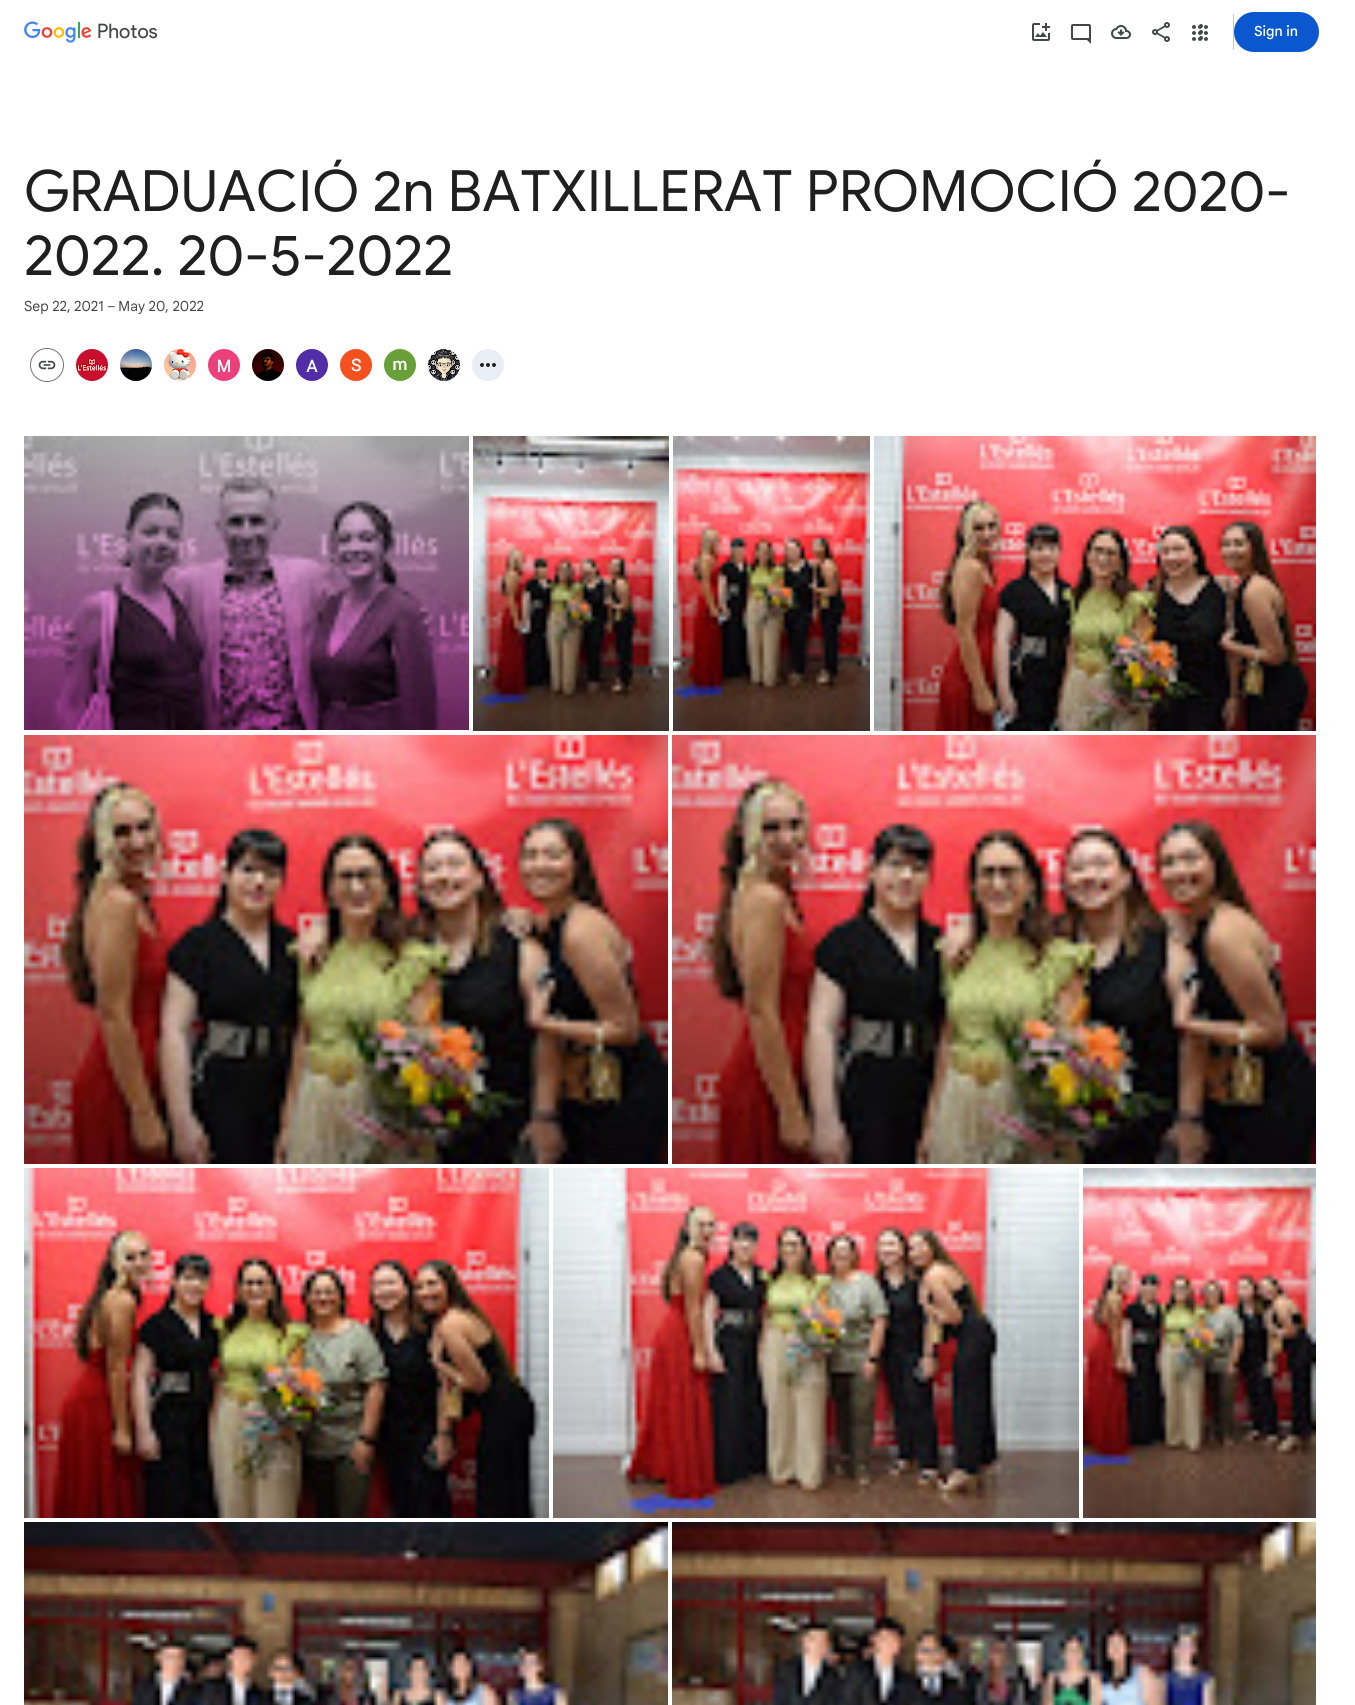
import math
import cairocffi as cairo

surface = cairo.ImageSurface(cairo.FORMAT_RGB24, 1355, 1705)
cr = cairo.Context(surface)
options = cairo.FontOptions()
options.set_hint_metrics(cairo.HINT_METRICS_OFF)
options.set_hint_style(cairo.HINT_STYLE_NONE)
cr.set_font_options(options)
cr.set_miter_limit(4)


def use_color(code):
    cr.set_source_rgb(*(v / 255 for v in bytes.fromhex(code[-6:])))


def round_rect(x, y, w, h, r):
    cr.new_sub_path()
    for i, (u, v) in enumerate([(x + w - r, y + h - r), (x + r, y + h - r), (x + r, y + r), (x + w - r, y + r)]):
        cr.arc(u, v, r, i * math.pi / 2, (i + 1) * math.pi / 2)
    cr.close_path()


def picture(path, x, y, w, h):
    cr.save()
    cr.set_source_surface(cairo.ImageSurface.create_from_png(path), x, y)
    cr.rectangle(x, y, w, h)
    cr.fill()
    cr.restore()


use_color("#ffffff")
cr.paint()
picture("img1.png", 24, 21, 68, 22)
cr.select_font_face("Product Sans")
cr.set_font_size(20)
use_color("#444746")
cr.move_to(97, 38)
cr.show_text("Photos")
picture("img2.png", 1032, 23, 18, 18)
picture("img3.png", 1071, 24, 20, 20)
picture("img4.png", 1111, 25, 20, 14)
picture("img5.png", 1152, 22, 18, 20)
picture("img6.png", 1199, 24, 4, 16)
use_color("#c4c7c5")
cr.rectangle(1233, 14, 1, 36)
cr.fill()
cr.select_font_face("Google Sans")
cr.set_font_size(57)
use_color("#1f1f1f")
cr.move_to(24, 211)
cr.show_text("GRADUACIÓ 2n BATXILLERAT PROMOCIÓ 2020-")
cr.move_to(24, 275)
cr.show_text("2022. 20-5-2022")
cr.select_font_face("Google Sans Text")
cr.set_font_size(14)
use_color("#444746")
cr.move_to(24, 311)
cr.show_text("Sep 22, 2021 – May 20, 2022")
cr.new_path()
cr.arc(47, 365, 16.5, 0, 2 * math.pi)
use_color("#747775")
cr.set_line_width(1)
cr.stroke()
picture("img7.png", 38, 360, 18, 10)
picture("img8.png", 76, 349, 32, 32)
picture("img9.png", 120, 349, 32, 32)
picture("img10.png", 164, 349, 32, 32)
picture("img11.png", 208, 349, 32, 32)
picture("img12.png", 252, 349, 32, 32)
picture("img13.png", 296, 349, 32, 32)
picture("img14.png", 340, 349, 32, 32)
picture("img15.png", 384, 349, 32, 32)
picture("img16.png", 428, 349, 32, 32)
use_color("#e9eef6")
cr.arc(488, 365, 16, 0, 2 * math.pi)
cr.fill()
picture("img17.png", 480, 363, 16, 4)
picture("img18.png", 24, 436, 445, 294)
picture("img19.png", 473, 436, 196, 295)
picture("img20.png", 673, 436, 197, 295)
picture("img21.png", 874, 436, 442, 295)
picture("img22.png", 24, 735, 644, 429)
picture("img23.png", 672, 735, 644, 429)
picture("img24.png", 24, 1168, 525, 350)
picture("img25.png", 553, 1168, 526, 350)
picture("img26.png", 1083, 1168, 233, 350)
picture("img27.png", 24, 1522, 644, 183)
picture("img28.png", 672, 1522, 644, 183)
picture("img29.png", 1192, 25, 16, 16)
use_color("#0b57d0")
round_rect(1234, 12, 85, 40, 20)
cr.fill()
cr.select_font_face("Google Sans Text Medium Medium")
use_color("#ffffff")
cr.move_to(1254, 36)
cr.show_text("Sign in")
surface.write_to_png("result.png")
